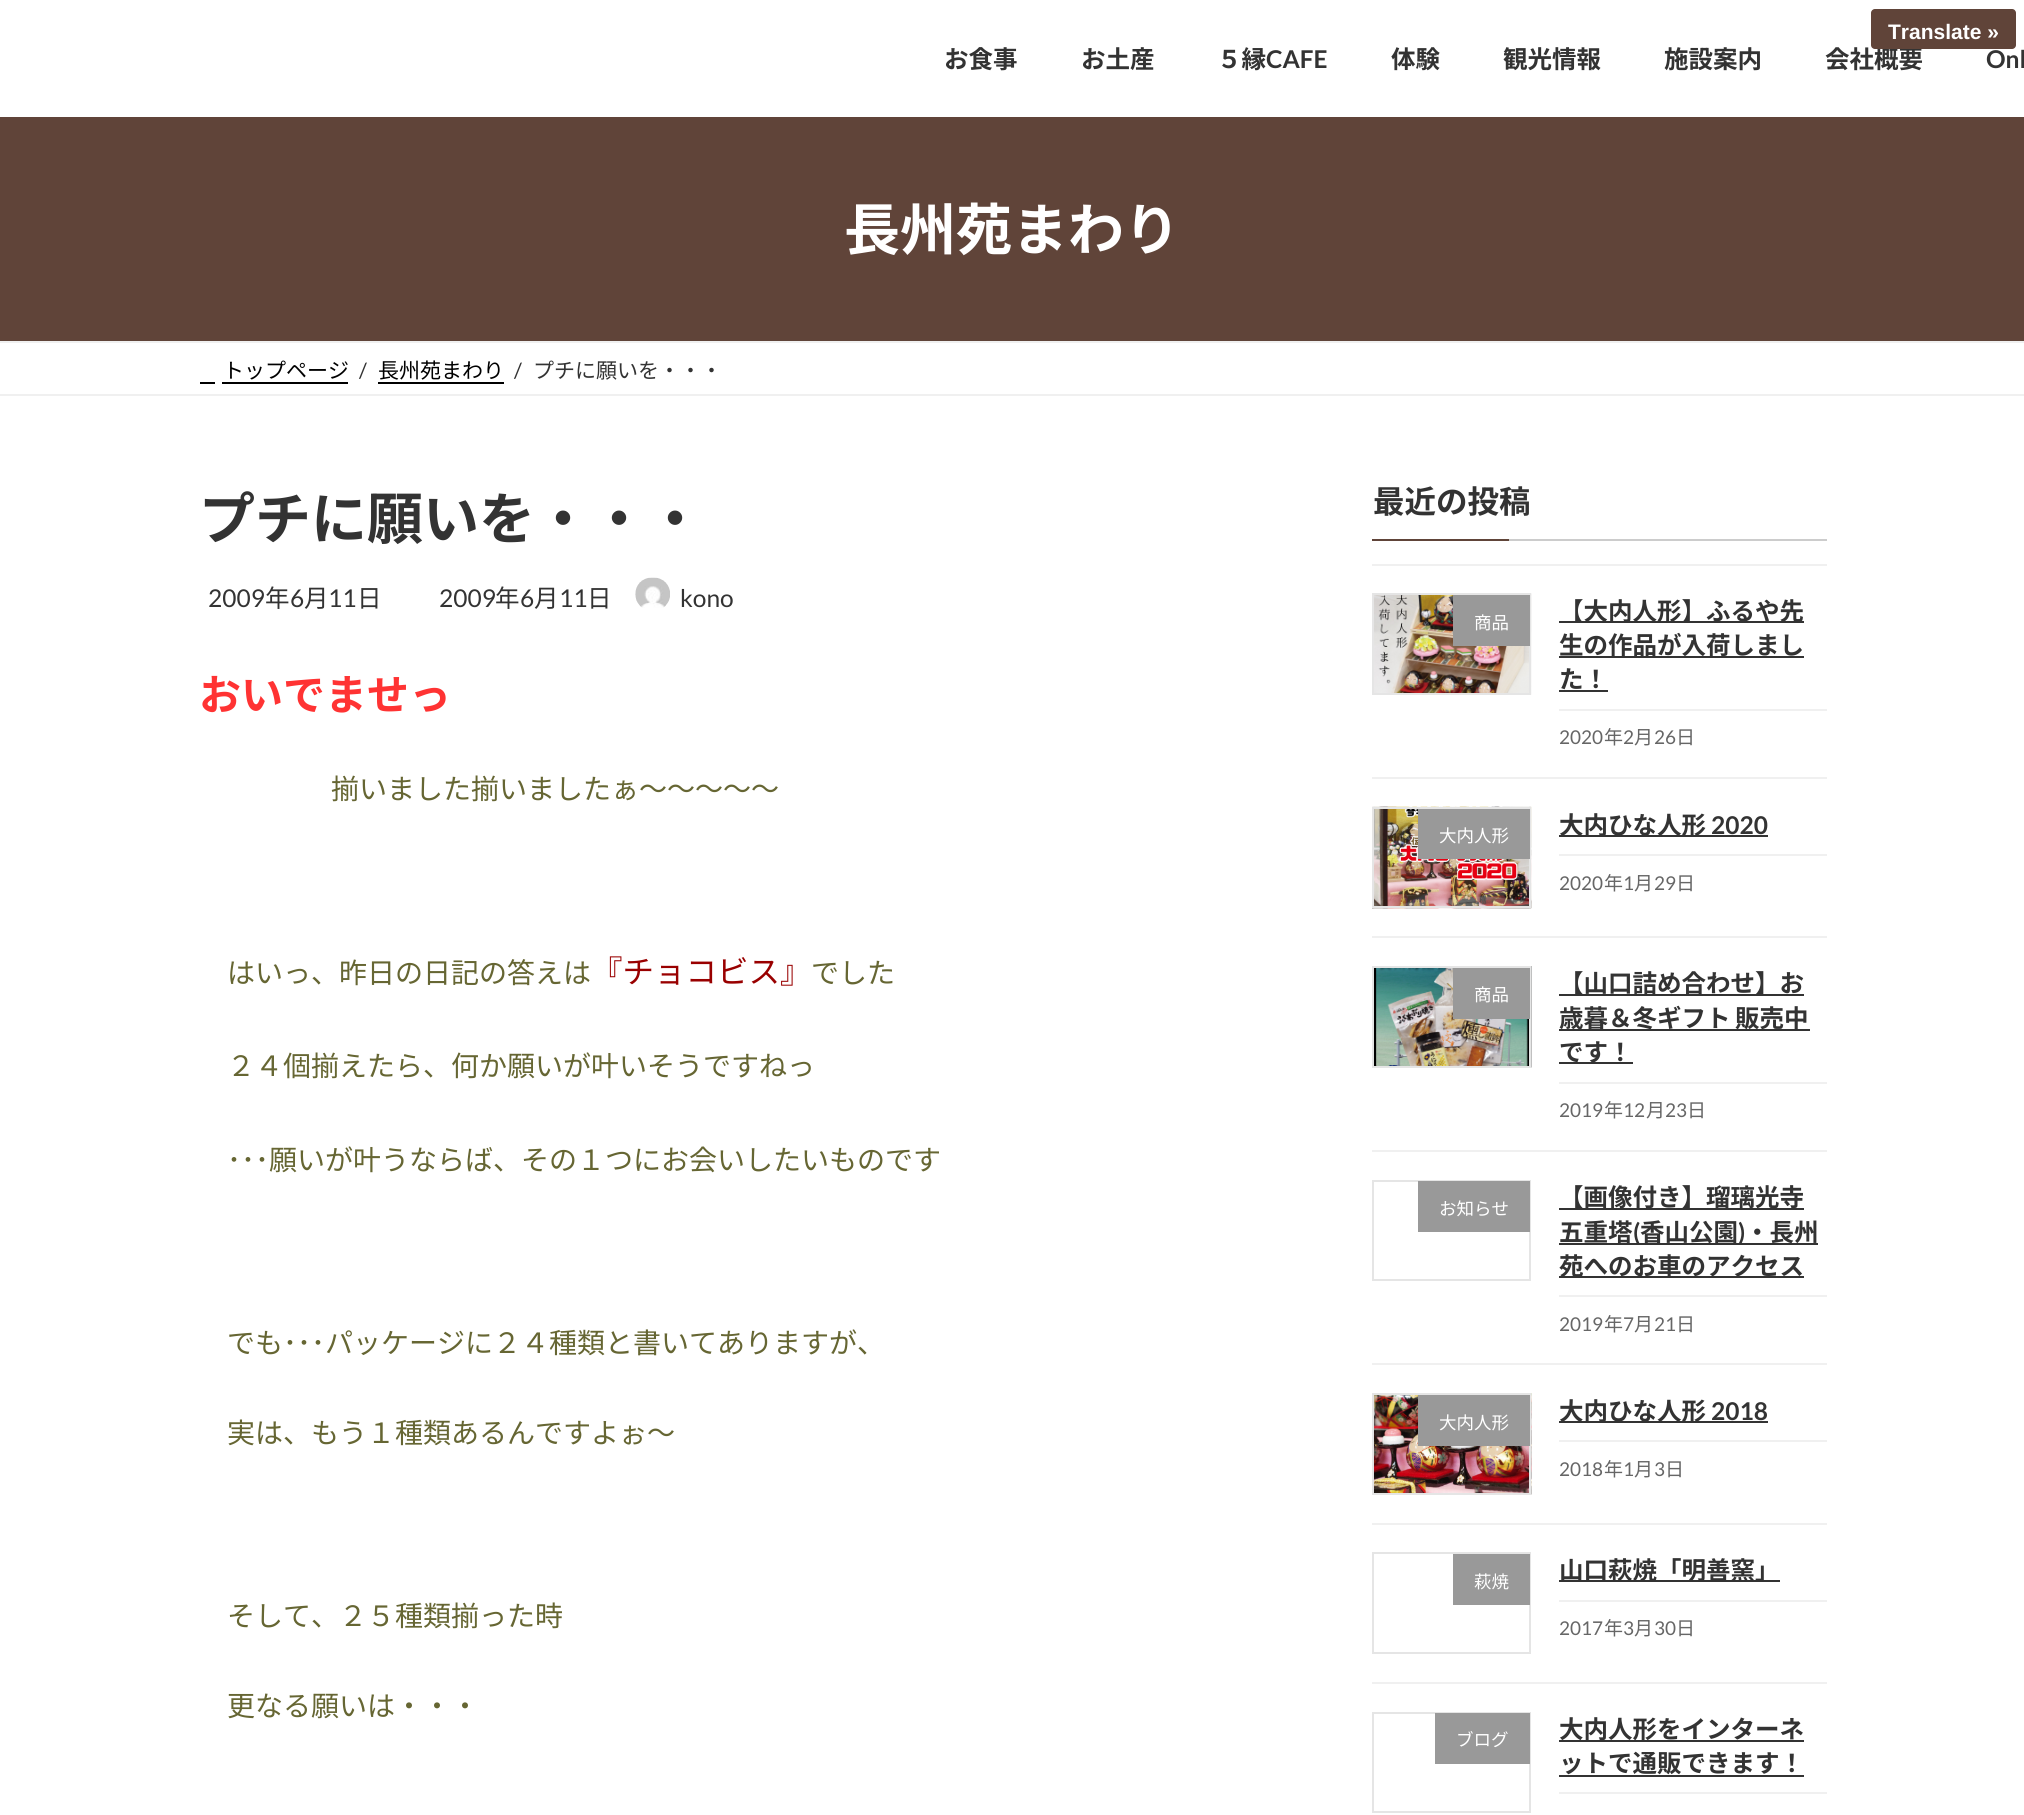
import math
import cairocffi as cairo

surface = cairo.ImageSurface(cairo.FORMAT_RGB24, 2024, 1815)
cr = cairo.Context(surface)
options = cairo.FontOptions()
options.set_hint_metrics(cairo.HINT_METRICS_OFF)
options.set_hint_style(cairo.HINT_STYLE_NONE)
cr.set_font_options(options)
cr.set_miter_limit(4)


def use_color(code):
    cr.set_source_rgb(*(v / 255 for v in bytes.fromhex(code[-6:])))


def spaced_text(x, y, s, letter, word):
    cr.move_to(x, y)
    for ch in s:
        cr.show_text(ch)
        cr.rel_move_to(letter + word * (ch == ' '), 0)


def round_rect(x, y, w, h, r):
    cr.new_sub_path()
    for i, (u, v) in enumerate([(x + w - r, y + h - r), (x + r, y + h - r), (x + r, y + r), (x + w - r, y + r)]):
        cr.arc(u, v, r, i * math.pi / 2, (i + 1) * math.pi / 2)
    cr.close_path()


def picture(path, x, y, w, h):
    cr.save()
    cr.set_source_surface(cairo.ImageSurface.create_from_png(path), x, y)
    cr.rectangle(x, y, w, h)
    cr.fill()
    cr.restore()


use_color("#ffffff")
cr.paint()
cr.select_font_face("Noto Sans JP", cairo.FONT_SLANT_NORMAL, cairo.FONT_WEIGHT_BOLD)
cr.set_font_size(24.5)
use_color("#333333")
cr.move_to(1825, 68)
cr.show_text("会社概要")
use_color("#604439")
round_rect(1871, 9, 145, 40, 4)
cr.fill()
cr.select_font_face("Liberation Sans", cairo.FONT_SLANT_NORMAL, cairo.FONT_WEIGHT_BOLD)
cr.set_font_size(21)
use_color("#ffffff")
cr.move_to(1888, 39)
cr.show_text("Translate »")
cr.select_font_face("Noto Sans JP", cairo.FONT_SLANT_NORMAL, cairo.FONT_WEIGHT_BOLD)
cr.set_font_size(24.5)
use_color("#333333")
cr.move_to(944, 68)
cr.show_text("お食事")
cr.move_to(1081, 68)
cr.show_text("お土産")
cr.move_to(1217, 68)
cr.show_text("５縁")
cr.select_font_face("Lato", cairo.FONT_SLANT_NORMAL, cairo.FONT_WEIGHT_BOLD)
cr.move_to(1266, 68)
cr.show_text("CAFE")
cr.select_font_face("Noto Sans JP", cairo.FONT_SLANT_NORMAL, cairo.FONT_WEIGHT_BOLD)
cr.move_to(1391, 68)
cr.show_text("体験")
cr.move_to(1503, 68)
cr.show_text("観光情報")
cr.move_to(1664, 68)
cr.show_text("施設案内")
cr.select_font_face("Lato", cairo.FONT_SLANT_NORMAL, cairo.FONT_WEIGHT_BOLD)
cr.move_to(1986, 68)
cr.show_text("Onl")
use_color("#604439")
cr.rectangle(0, 117, 2024, 224)
cr.fill()
cr.select_font_face("Noto Sans JP", cairo.FONT_SLANT_NORMAL, cairo.FONT_WEIGHT_BOLD)
cr.set_font_size(56)
use_color("#ffffff")
cr.move_to(844, 250)
cr.show_text("長州苑まわり")
use_color("#f0f0f0")
cr.rectangle(0, 341, 2024, 2)
cr.fill()
cr.rectangle(0, 394, 2024, 2)
cr.fill()
cr.select_font_face("Noto Sans JP")
cr.set_font_size(21)
use_color("#000000")
cr.move_to(223, 378)
cr.show_text("トップページ")
cr.rectangle(200, 382, 15, 2)
cr.fill()
cr.rectangle(222, 382, 126, 2)
cr.fill()
cr.select_font_face("Lato")
use_color("#333333")
cr.move_to(359, 378)
cr.show_text("/")
cr.select_font_face("Noto Sans JP")
use_color("#000000")
cr.move_to(378, 378)
cr.show_text("長州苑まわり")
cr.rectangle(378, 382, 126, 2)
cr.fill()
cr.select_font_face("Lato")
use_color("#333333")
cr.move_to(514, 378)
cr.show_text("/")
cr.select_font_face("Noto Sans JP")
cr.move_to(533, 378)
cr.show_text("プチに願いを・・・")
cr.select_font_face("Noto Sans JP", cairo.FONT_SLANT_NORMAL, cairo.FONT_WEIGHT_BOLD)
cr.set_font_size(56)
cr.move_to(199, 539)
cr.show_text("プチに願いを・・・")
cr.select_font_face("Lato")
cr.set_font_size(24.5)
cr.move_to(208, 607)
cr.show_text("2009")
cr.select_font_face("Noto Sans JP")
cr.move_to(265, 607)
cr.show_text("年")
cr.select_font_face("Lato")
cr.move_to(290, 607)
cr.show_text("6")
cr.select_font_face("Noto Sans JP")
cr.move_to(304, 607)
cr.show_text("月")
cr.select_font_face("Lato")
cr.move_to(328, 607)
cr.show_text("11")
cr.select_font_face("Noto Sans JP")
cr.move_to(357, 607)
cr.show_text("日")
cr.select_font_face("Lato")
cr.move_to(439, 607)
cr.show_text("2009")
cr.select_font_face("Noto Sans JP")
cr.move_to(495, 607)
cr.show_text("年")
cr.select_font_face("Lato")
cr.move_to(520, 607)
cr.show_text("6")
cr.select_font_face("Noto Sans JP")
cr.move_to(534, 607)
cr.show_text("月")
cr.select_font_face("Lato")
cr.move_to(559, 607)
cr.show_text("11")
cr.select_font_face("Noto Sans JP")
cr.move_to(587, 607)
cr.show_text("日")
picture("img1.png", 635, 577, 35, 31)
cr.select_font_face("Lato")
cr.move_to(680, 607)
cr.show_text("kono")
cr.select_font_face("Noto Sans JP", cairo.FONT_SLANT_NORMAL, cairo.FONT_WEIGHT_BOLD)
cr.set_font_size(42)
use_color("#ff3333")
cr.move_to(199, 710)
cr.show_text("おいでませっ")
cr.select_font_face("Noto Sans JP")
cr.set_font_size(28)
use_color("#666633")
cr.move_to(331, 799)
cr.show_text("揃いました揃いましたぁ～～～～～")
cr.move_to(227, 983)
cr.show_text("はいっ、昨日の日記の答えは")
cr.set_font_size(31.5)
use_color("#990000")
cr.move_to(591, 983)
cr.show_text("『チョコビス』")
cr.set_font_size(28)
use_color("#666633")
cr.move_to(811, 983)
cr.show_text("でした")
cr.move_to(227, 1076)
cr.show_text("２４個揃えたら、何か願いが叶いそうですねっ")
cr.move_to(227, 1170)
cr.show_text("･･･願いが叶うならば、その１つにお会いしたいものです")
cr.move_to(227, 1353)
cr.show_text("でも･･･パッケージに２４種類と書いてありますが、")
cr.move_to(227, 1443)
cr.show_text("実は、もう１種類あるんですよぉ～")
cr.move_to(227, 1626)
cr.show_text("そして、２５種類揃った時")
cr.move_to(227, 1716)
cr.show_text("更なる願いは・・・")
use_color("#cccccc")
cr.rectangle(1509, 539, 318, 2)
cr.fill()
cr.select_font_face("Noto Sans JP", cairo.FONT_SLANT_NORMAL, cairo.FONT_WEIGHT_BOLD)
cr.set_font_size(31.5)
use_color("#333333")
cr.move_to(1373, 513)
cr.show_text("最近の投稿")
use_color("#604439")
cr.rectangle(1372, 539, 137, 2)
cr.fill()
use_color("#f0f0f0")
cr.rectangle(1372, 564, 455, 2)
cr.fill()
cr.rectangle(1372, 777, 455, 2)
cr.fill()
picture("img2.png", 1374, 593, 158, 102)
cr.rectangle(1373, 594, 157, 100)
use_color("#e5e5e5")
cr.stroke()
use_color("#999999")
cr.rectangle(1453, 595, 77, 51)
cr.fill()
cr.select_font_face("Noto Sans JP")
cr.set_font_size(17.5)
use_color("#ffffff")
cr.move_to(1474, 629)
cr.show_text("商品")
use_color("#f0f0f0")
cr.rectangle(1559, 709, 268, 2)
cr.fill()
use_color("#333333")
cr.rectangle(1559, 621, 245, 2)
cr.fill()
cr.select_font_face("Noto Sans JP", cairo.FONT_SLANT_NORMAL, cairo.FONT_WEIGHT_BOLD)
cr.set_font_size(24.5)
cr.move_to(1559, 620)
cr.show_text("【大内人形】ふるや先")
cr.rectangle(1559, 656, 245, 2)
cr.fill()
cr.move_to(1559, 654)
cr.show_text("生の作品が入荷しまし")
cr.move_to(1559, 688)
cr.show_text("た！")
cr.rectangle(1559, 690, 49, 2)
cr.fill()
cr.select_font_face("Lato")
cr.set_font_size(19)
use_color("#666666")
cr.move_to(1559, 744)
cr.show_text("2020")
cr.select_font_face("Noto Sans JP")
cr.move_to(1604, 744)
cr.show_text("年")
cr.select_font_face("Lato")
cr.move_to(1623, 744)
cr.show_text("2")
cr.select_font_face("Noto Sans JP")
cr.move_to(1634, 744)
cr.show_text("月")
cr.select_font_face("Lato")
cr.move_to(1654, 744)
cr.show_text("26")
cr.select_font_face("Noto Sans JP")
cr.move_to(1676, 744)
cr.show_text("日")
use_color("#f0f0f0")
cr.rectangle(1372, 936, 455, 2)
cr.fill()
picture("img3.png", 1372, 806, 160, 103)
cr.rectangle(1373, 808, 157, 99)
use_color("#e5e5e5")
cr.stroke()
use_color("#999999")
cr.rectangle(1418, 809, 112, 50)
cr.fill()
cr.set_font_size(17.5)
use_color("#ffffff")
cr.move_to(1439, 842)
cr.show_text("大内人形")
use_color("#f0f0f0")
cr.rectangle(1559, 854, 268, 2)
cr.fill()
use_color("#333333")
cr.rectangle(1559, 835, 209, 2)
cr.fill()
cr.select_font_face("Noto Sans JP", cairo.FONT_SLANT_NORMAL, cairo.FONT_WEIGHT_BOLD)
cr.set_font_size(24.5)
cr.move_to(1559, 834)
cr.show_text("大内ひな人形")
cr.select_font_face("Lato", cairo.FONT_SLANT_NORMAL, cairo.FONT_WEIGHT_BOLD)
cr.move_to(1711, 834)
cr.show_text("2020")
cr.select_font_face("Lato")
cr.set_font_size(19)
use_color("#666666")
cr.move_to(1559, 890)
cr.show_text("2020")
cr.select_font_face("Noto Sans JP")
cr.move_to(1604, 890)
cr.show_text("年")
cr.select_font_face("Lato")
cr.move_to(1623, 890)
cr.show_text("1")
cr.select_font_face("Noto Sans JP")
cr.move_to(1634, 890)
cr.show_text("月")
cr.select_font_face("Lato")
cr.move_to(1654, 890)
cr.show_text("29")
cr.select_font_face("Noto Sans JP")
cr.move_to(1676, 890)
cr.show_text("日")
use_color("#f0f0f0")
cr.rectangle(1372, 1150, 455, 2)
cr.fill()
picture("img4.png", 1374, 966, 158, 102)
cr.rectangle(1373, 967, 157, 100)
use_color("#e5e5e5")
cr.stroke()
use_color("#999999")
cr.rectangle(1453, 968, 77, 51)
cr.fill()
cr.set_font_size(17.5)
use_color("#ffffff")
cr.move_to(1474, 1001)
cr.show_text("商品")
use_color("#f0f0f0")
cr.rectangle(1559, 1082, 268, 2)
cr.fill()
use_color("#333333")
cr.rectangle(1559, 994, 245, 2)
cr.fill()
cr.select_font_face("Noto Sans JP", cairo.FONT_SLANT_NORMAL, cairo.FONT_WEIGHT_BOLD)
cr.set_font_size(24.5)
cr.move_to(1559, 992)
cr.show_text("【山口詰め合わせ】お")
cr.rectangle(1559, 1029, 251, 2)
cr.fill()
spaced_text(1559, 1027, "歳暮＆冬ギフト 販売中", 0, -1)
cr.rectangle(1559, 1062, 74, 2)
cr.fill()
cr.move_to(1559, 1061)
cr.show_text("です！")
cr.select_font_face("Lato")
cr.set_font_size(19)
use_color("#666666")
cr.move_to(1559, 1117)
cr.show_text("2019")
cr.select_font_face("Noto Sans JP")
cr.move_to(1604, 1117)
cr.show_text("年")
cr.select_font_face("Lato")
cr.move_to(1623, 1117)
cr.show_text("12")
cr.select_font_face("Noto Sans JP")
cr.move_to(1646, 1117)
cr.show_text("月")
cr.select_font_face("Lato")
cr.move_to(1665, 1117)
cr.show_text("23")
cr.select_font_face("Noto Sans JP")
cr.move_to(1687, 1117)
cr.show_text("日")
use_color("#f0f0f0")
cr.rectangle(1372, 1363, 455, 2)
cr.fill()
cr.rectangle(1373, 1181, 157, 99)
use_color("#e5e5e5")
cr.stroke()
use_color("#999999")
cr.rectangle(1418, 1181, 112, 51)
cr.fill()
cr.set_font_size(17.5)
use_color("#ffffff")
cr.move_to(1439, 1215)
cr.show_text("お知らせ")
use_color("#f0f0f0")
cr.rectangle(1559, 1295, 268, 2)
cr.fill()
use_color("#333333")
cr.rectangle(1559, 1208, 245, 2)
cr.fill()
cr.select_font_face("Noto Sans JP", cairo.FONT_SLANT_NORMAL, cairo.FONT_WEIGHT_BOLD)
cr.set_font_size(24.5)
cr.move_to(1559, 1206)
cr.show_text("【画像付き】瑠璃光寺")
cr.rectangle(1559, 1243, 259, 2)
cr.fill()
cr.move_to(1559, 1241)
cr.show_text("五重塔")
cr.select_font_face("Lato", cairo.FONT_SLANT_NORMAL, cairo.FONT_WEIGHT_BOLD)
cr.move_to(1633, 1241)
cr.show_text("(")
cr.select_font_face("Noto Sans JP", cairo.FONT_SLANT_NORMAL, cairo.FONT_WEIGHT_BOLD)
cr.move_to(1640, 1241)
cr.show_text("香山公園")
cr.select_font_face("Lato", cairo.FONT_SLANT_NORMAL, cairo.FONT_WEIGHT_BOLD)
cr.move_to(1738, 1241)
cr.show_text(")")
cr.select_font_face("Noto Sans JP", cairo.FONT_SLANT_NORMAL, cairo.FONT_WEIGHT_BOLD)
cr.move_to(1745, 1241)
cr.show_text("・長州")
cr.rectangle(1559, 1276, 245, 2)
cr.fill()
cr.move_to(1559, 1275)
cr.show_text("苑へのお車のアクセス")
cr.select_font_face("Lato")
cr.set_font_size(19)
use_color("#666666")
cr.move_to(1559, 1331)
cr.show_text("2019")
cr.select_font_face("Noto Sans JP")
cr.move_to(1604, 1331)
cr.show_text("年")
cr.select_font_face("Lato")
cr.move_to(1623, 1331)
cr.show_text("7")
cr.select_font_face("Noto Sans JP")
cr.move_to(1634, 1331)
cr.show_text("月")
cr.select_font_face("Lato")
cr.move_to(1654, 1331)
cr.show_text("21")
cr.select_font_face("Noto Sans JP")
cr.move_to(1676, 1331)
cr.show_text("日")
use_color("#f0f0f0")
cr.rectangle(1372, 1523, 455, 2)
cr.fill()
picture("img5.png", 1374, 1393, 158, 102)
cr.rectangle(1373, 1394, 157, 100)
use_color("#e5e5e5")
cr.stroke()
use_color("#999999")
cr.rectangle(1418, 1395, 112, 51)
cr.fill()
cr.set_font_size(17.5)
use_color("#ffffff")
cr.move_to(1439, 1429)
cr.show_text("大内人形")
use_color("#f0f0f0")
cr.rectangle(1559, 1440, 268, 2)
cr.fill()
use_color("#333333")
cr.rectangle(1559, 1421, 209, 2)
cr.fill()
cr.select_font_face("Noto Sans JP", cairo.FONT_SLANT_NORMAL, cairo.FONT_WEIGHT_BOLD)
cr.set_font_size(24.5)
cr.move_to(1559, 1420)
cr.show_text("大内ひな人形")
cr.select_font_face("Lato", cairo.FONT_SLANT_NORMAL, cairo.FONT_WEIGHT_BOLD)
cr.move_to(1711, 1420)
cr.show_text("2018")
cr.select_font_face("Lato")
cr.set_font_size(19)
use_color("#666666")
cr.move_to(1559, 1476)
cr.show_text("2018")
cr.select_font_face("Noto Sans JP")
cr.move_to(1604, 1476)
cr.show_text("年")
cr.select_font_face("Lato")
cr.move_to(1623, 1476)
cr.show_text("1")
cr.select_font_face("Noto Sans JP")
cr.move_to(1634, 1476)
cr.show_text("月")
cr.select_font_face("Lato")
cr.move_to(1654, 1476)
cr.show_text("3")
cr.select_font_face("Noto Sans JP")
cr.move_to(1665, 1476)
cr.show_text("日")
use_color("#f0f0f0")
cr.rectangle(1372, 1682, 455, 2)
cr.fill()
cr.rectangle(1373, 1553, 157, 100)
use_color("#e5e5e5")
cr.stroke()
use_color("#999999")
cr.rectangle(1453, 1554, 77, 51)
cr.fill()
cr.set_font_size(17.5)
use_color("#ffffff")
cr.move_to(1474, 1588)
cr.show_text("萩焼")
use_color("#f0f0f0")
cr.rectangle(1559, 1600, 268, 2)
cr.fill()
use_color("#333333")
cr.rectangle(1559, 1580, 221, 2)
cr.fill()
cr.select_font_face("Noto Sans JP", cairo.FONT_SLANT_NORMAL, cairo.FONT_WEIGHT_BOLD)
cr.set_font_size(24.5)
cr.move_to(1559, 1579)
cr.show_text("山口萩焼「明善窯」")
cr.select_font_face("Lato")
cr.set_font_size(19)
use_color("#666666")
cr.move_to(1559, 1635)
cr.show_text("2017")
cr.select_font_face("Noto Sans JP")
cr.move_to(1604, 1635)
cr.show_text("年")
cr.select_font_face("Lato")
cr.move_to(1623, 1635)
cr.show_text("3")
cr.select_font_face("Noto Sans JP")
cr.move_to(1634, 1635)
cr.show_text("月")
cr.select_font_face("Lato")
cr.move_to(1654, 1635)
cr.show_text("30")
cr.select_font_face("Noto Sans JP")
cr.move_to(1676, 1635)
cr.show_text("日")
cr.rectangle(1373, 1713, 157, 99)
use_color("#e5e5e5")
cr.stroke()
use_color("#999999")
cr.rectangle(1435, 1713, 95, 51)
cr.fill()
cr.set_font_size(17.5)
use_color("#ffffff")
cr.move_to(1456, 1746)
cr.show_text("ブログ")
use_color("#f0f0f0")
cr.rectangle(1559, 1792, 268, 2)
cr.fill()
use_color("#333333")
cr.rectangle(1559, 1740, 245, 2)
cr.fill()
cr.select_font_face("Noto Sans JP", cairo.FONT_SLANT_NORMAL, cairo.FONT_WEIGHT_BOLD)
cr.set_font_size(24.5)
cr.move_to(1559, 1738)
cr.show_text("大内人形をインターネ")
cr.move_to(1559, 1772)
cr.show_text("ットで通販できます！")
cr.rectangle(1559, 1775, 245, 2)
cr.fill()
surface.write_to_png("result.png")
